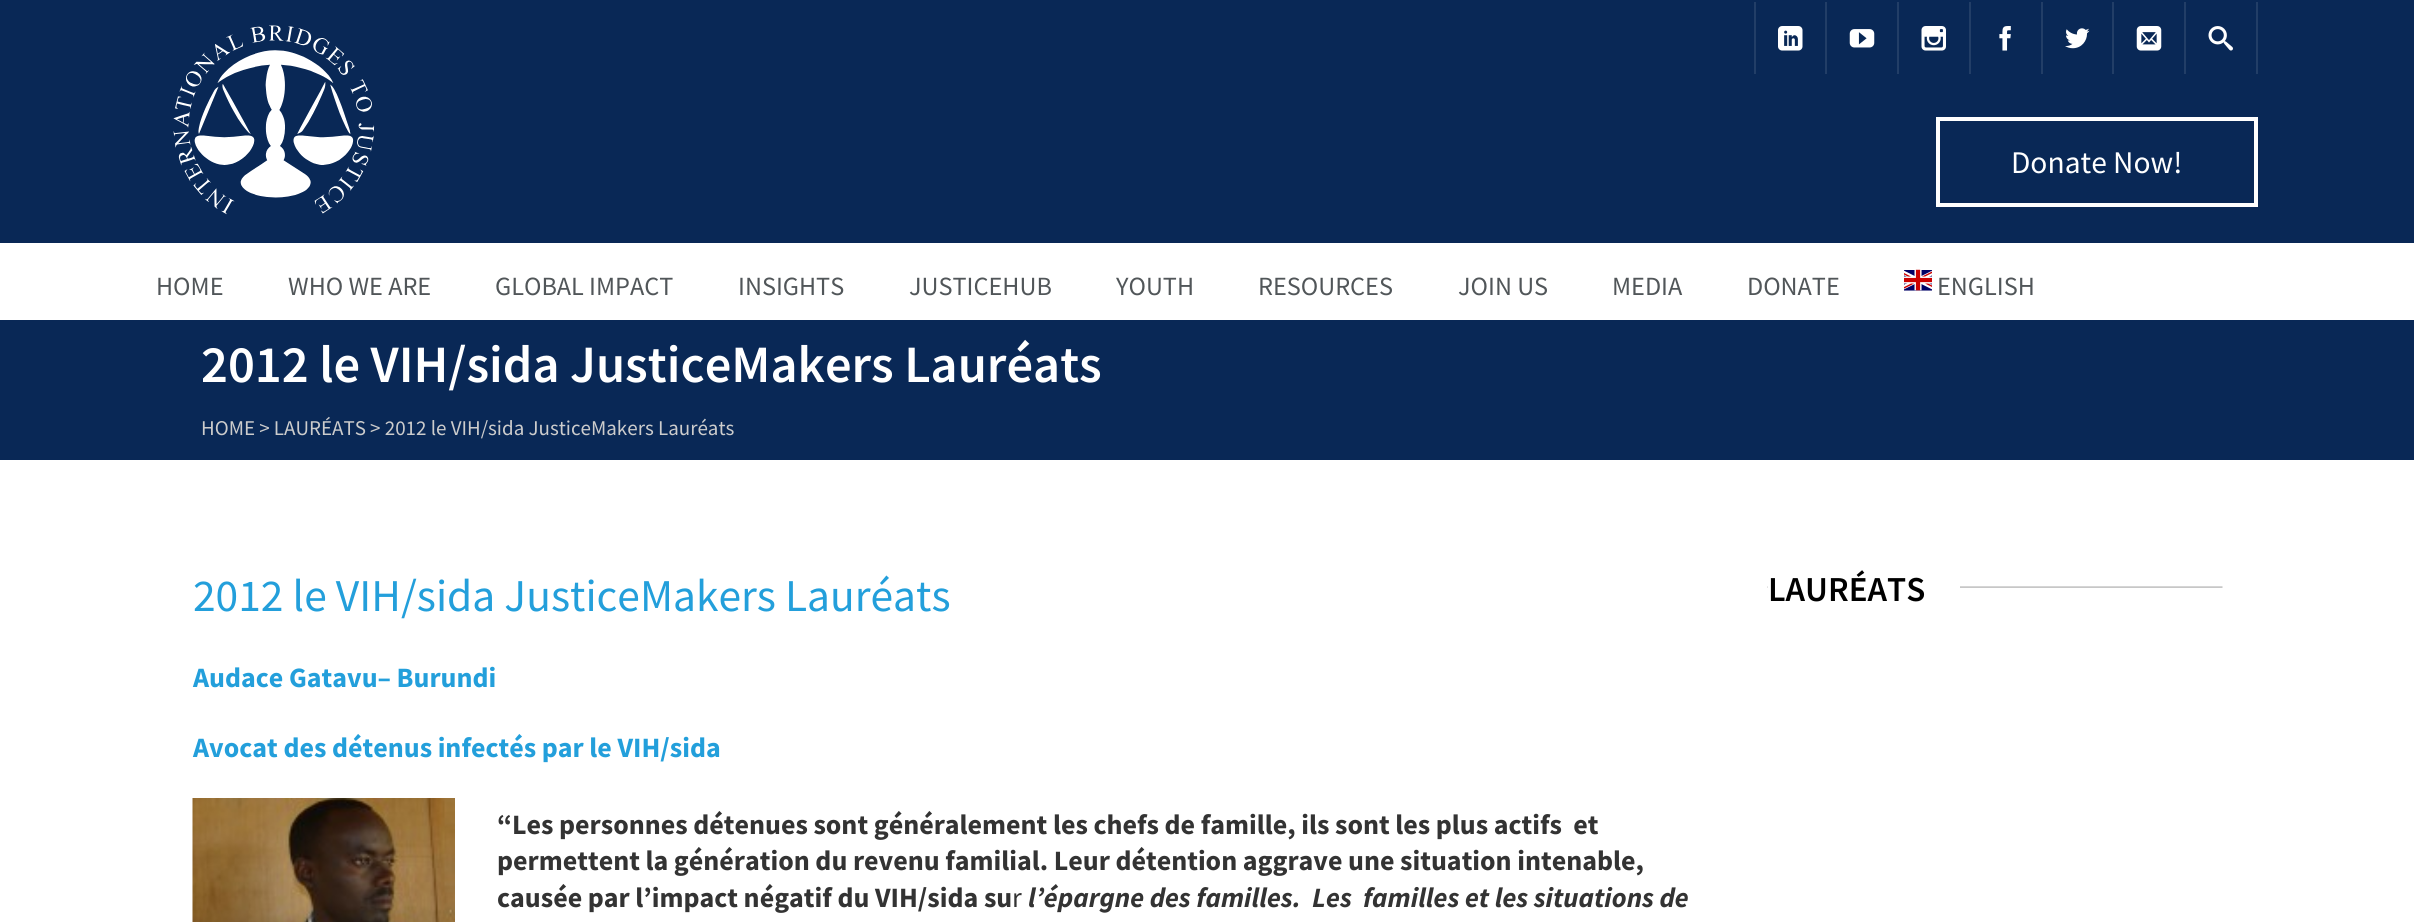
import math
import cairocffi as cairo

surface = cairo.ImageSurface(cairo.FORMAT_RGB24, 2414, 922)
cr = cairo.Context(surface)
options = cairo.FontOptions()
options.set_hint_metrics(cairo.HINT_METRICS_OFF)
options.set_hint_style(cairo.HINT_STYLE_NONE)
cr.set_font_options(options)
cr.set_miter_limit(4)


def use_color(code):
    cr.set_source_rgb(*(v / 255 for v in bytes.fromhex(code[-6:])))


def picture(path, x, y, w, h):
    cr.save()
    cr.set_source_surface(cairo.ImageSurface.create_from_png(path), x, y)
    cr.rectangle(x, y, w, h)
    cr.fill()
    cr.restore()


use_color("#ffffff")
cr.paint()
use_color("#092856")
cr.rectangle(0, 0, 2414, 460)
cr.fill()
use_color("#223e67")
cr.rectangle(1754, 2, 2, 72)
cr.fill()
picture("img1.png", 1778, 26, 25, 25)
cr.rectangle(1825, 2, 2, 72)
cr.fill()
picture("img2.png", 1849, 29, 26, 19)
cr.rectangle(1897, 2, 2, 72)
cr.fill()
picture("img3.png", 1921, 26, 25, 25)
cr.rectangle(1969, 2, 2, 72)
cr.fill()
picture("img4.png", 1999, 26, 12, 25)
cr.rectangle(2041, 2, 2, 72)
cr.fill()
picture("img5.png", 2065, 28, 25, 21)
cr.rectangle(2112, 2, 2, 72)
cr.fill()
picture("img6.png", 2136, 26, 26, 25)
cr.rectangle(2256, 2, 2, 72)
cr.fill()
cr.rectangle(2184, 2, 2, 72)
cr.fill()
picture("img7.png", 2208, 26, 25, 25)
picture("img8.png", 173, 25, 202, 190)
cr.rectangle(1938, 119, 318, 86)
use_color("#ffffff")
cr.set_line_width(4)
cr.stroke()
cr.select_font_face("Source Sans Pro")
cr.set_font_size(31.5)
cr.move_to(2011, 173)
cr.show_text("Donate Now!")
cr.rectangle(0, 243, 2414, 77)
cr.fill()
cr.set_font_size(26.25)
use_color("#515659")
cr.move_to(156, 295)
cr.show_text("HOME")
cr.move_to(288, 295)
cr.show_text("WHO WE ARE")
cr.move_to(495, 295)
cr.show_text("GLOBAL IMPACT")
cr.move_to(738, 295)
cr.show_text("INSIGHTS")
cr.move_to(909, 295)
cr.show_text("JUSTICEHUB")
cr.move_to(1116, 295)
cr.show_text("YOUTH")
cr.move_to(1258, 295)
cr.show_text("RESOURCES")
cr.move_to(1458, 295)
cr.show_text("JOIN US")
cr.move_to(1612, 295)
cr.show_text("MEDIA")
cr.move_to(1747, 295)
cr.show_text("DONATE")
picture("img9.png", 1904, 269, 28, 22)
cr.move_to(1937, 295)
cr.show_text("ENGLISH")
cr.select_font_face("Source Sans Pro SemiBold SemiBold")
cr.set_font_size(52.5)
use_color("#ffffff")
cr.move_to(201, 382)
cr.show_text("2012 le VIH/sida JusticeMakers Lauréats")
cr.select_font_face("Source Sans Pro")
cr.set_font_size(21)
use_color("#cccccc")
cr.move_to(201, 435)
cr.show_text("HOME > LAURÉATS > 2012 le VIH/sida JusticeMakers Lauréats")
cr.set_font_size(45.5)
use_color("#239fdb")
cr.move_to(193, 611)
cr.show_text("2012 le VIH/sida JusticeMakers Lauréats")
cr.select_font_face("Source Sans Pro", cairo.FONT_SLANT_NORMAL, cairo.FONT_WEIGHT_BOLD)
cr.set_font_size(28)
cr.move_to(193, 687)
cr.show_text("Audace Gatavu– Burundi")
cr.move_to(193, 757)
cr.show_text("Avocat des détenus infectés par le VIH/sida")
picture("img10.png", 192, 798, 263, 124)
use_color("#333333")
cr.move_to(497, 834)
cr.show_text("“Les personnes détenues sont généralement les chefs de famille, ils sont les plus actifs  et")
cr.move_to(497, 870)
cr.show_text("permettent la génération du revenu familial. Leur détention aggrave une situation intenable,")
cr.move_to(497, 907)
cr.show_text("causée par l’impact négatif du VIH/sida su")
cr.select_font_face("Source Sans Pro")
cr.move_to(1012, 907)
cr.show_text("r")
cr.select_font_face("Source Sans Pro", cairo.FONT_SLANT_ITALIC, cairo.FONT_WEIGHT_BOLD)
cr.move_to(1028, 907)
cr.show_text("l’épargne des familles.  Les  familles et les situations de")
picture("img11.png", 1767, 586, 456, 2)
use_color("#ffffff")
cr.rectangle(1768, 586, 192, 2)
cr.fill()
cr.select_font_face("Source Sans Pro SemiBold SemiBold")
cr.set_font_size(35)
use_color("#000000")
cr.move_to(1768, 601)
cr.show_text("LAURÉATS")
surface.write_to_png("result.png")
